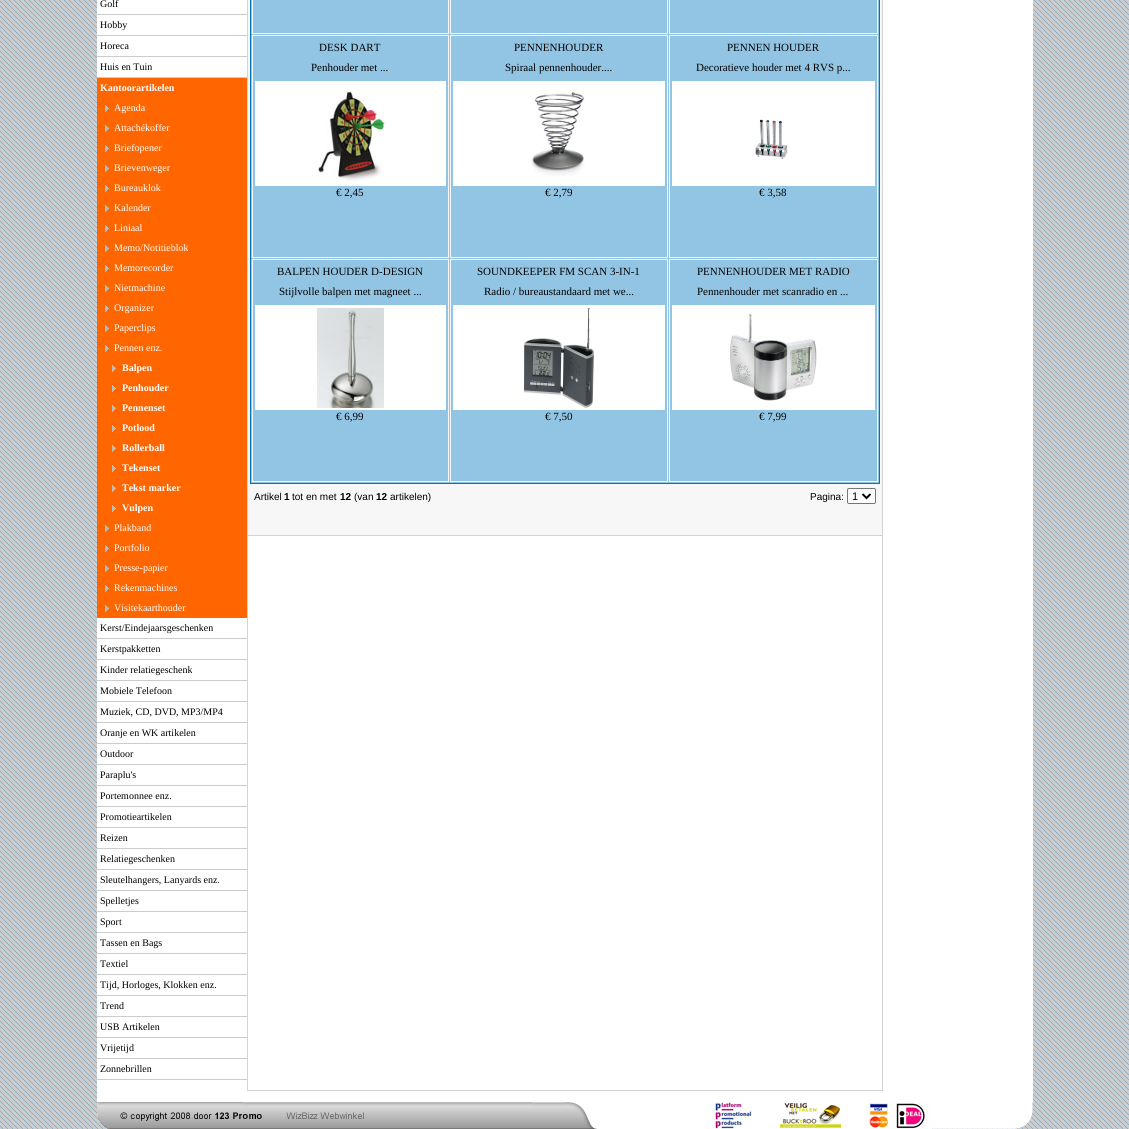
import math
import cairocffi as cairo

surface = cairo.ImageSurface(cairo.FORMAT_RGB24, 1129, 1129)
cr = cairo.Context(surface)
options = cairo.FontOptions()
options.set_hint_metrics(cairo.HINT_METRICS_OFF)
options.set_hint_style(cairo.HINT_STYLE_NONE)
cr.set_font_options(options)
cr.set_miter_limit(4)


def use_color(code):
    cr.set_source_rgb(*(v / 255 for v in bytes.fromhex(code[-6:])))


def round_rect(x, y, w, h, r):
    cr.new_sub_path()
    for i, (u, v) in enumerate([(x + w - r, y + h - r), (x + r, y + h - r), (x + r, y + r), (x + w - r, y + r)]):
        cr.arc(u, v, r, i * math.pi / 2, (i + 1) * math.pi / 2)
    cr.close_path()


def picture(path, x, y, w, h):
    cr.save()
    cr.set_source_surface(cairo.ImageSurface.create_from_png(path), x, y)
    cr.rectangle(x, y, w, h)
    cr.fill()
    cr.restore()


use_color("#ffffff")
cr.paint()
picture("img1.png", 0, 0, 1129, 1129)
use_color("#ffffff")
cr.rectangle(97, 0, 936, 1102)
cr.fill()
use_color("#cccccc")
cr.rectangle(97, 14, 150, 1)
cr.fill()
cr.select_font_face("Liberation Serif")
cr.set_font_size(10)
use_color("#000000")
cr.move_to(100, 7)
cr.show_text("Golf")
use_color("#cccccc")
cr.rectangle(97, 35, 150, 1)
cr.fill()
use_color("#000000")
cr.move_to(100, 28)
cr.show_text("Hobby")
use_color("#cccccc")
cr.rectangle(97, 56, 150, 1)
cr.fill()
use_color("#000000")
cr.move_to(100, 49)
cr.show_text("Horeca")
use_color("#cccccc")
cr.rectangle(97, 77, 150, 1)
cr.fill()
use_color("#000000")
cr.move_to(100, 70)
cr.show_text("Huis en Tuin")
use_color("#ff6600")
cr.rectangle(97, 78, 150, 540)
cr.fill()
cr.select_font_face("Liberation Serif", cairo.FONT_SLANT_NORMAL, cairo.FONT_WEIGHT_BOLD)
use_color("#ffffff")
cr.move_to(100, 91)
cr.show_text("Kantoorartikelen")
picture("img2.png", 105, 105, 4, 7)
cr.select_font_face("Liberation Serif")
cr.move_to(114, 111)
cr.show_text("Agenda")
picture("img2.png", 105, 125, 4, 7)
cr.move_to(114, 131)
cr.show_text("Attachékoffer")
picture("img2.png", 105, 145, 4, 7)
cr.move_to(114, 151)
cr.show_text("Briefopener")
picture("img2.png", 105, 165, 4, 7)
cr.move_to(114, 171)
cr.show_text("Brievenweger")
picture("img2.png", 105, 185, 4, 7)
cr.move_to(114, 191)
cr.show_text("Bureauklok")
picture("img2.png", 105, 205, 4, 7)
cr.move_to(114, 211)
cr.show_text("Kalender")
picture("img2.png", 105, 225, 4, 7)
cr.move_to(114, 231)
cr.show_text("Liniaal")
picture("img2.png", 105, 245, 4, 7)
cr.move_to(114, 251)
cr.show_text("Memo/Notitieblok")
picture("img2.png", 105, 265, 4, 7)
cr.move_to(114, 271)
cr.show_text("Memorecorder")
picture("img2.png", 105, 285, 4, 7)
cr.move_to(114, 291)
cr.show_text("Nietmachine")
picture("img2.png", 105, 305, 4, 7)
cr.move_to(114, 311)
cr.show_text("Organizer")
picture("img2.png", 105, 325, 4, 7)
cr.move_to(114, 331)
cr.show_text("Paperclips")
picture("img2.png", 105, 345, 4, 7)
cr.move_to(114, 351)
cr.show_text("Pennen enz.")
picture("img2.png", 112, 365, 4, 7)
cr.select_font_face("Liberation Serif", cairo.FONT_SLANT_NORMAL, cairo.FONT_WEIGHT_BOLD)
cr.move_to(122, 371)
cr.show_text("Balpen")
picture("img2.png", 112, 385, 4, 7)
cr.move_to(122, 391)
cr.show_text("Penhouder")
picture("img2.png", 112, 405, 4, 7)
cr.move_to(122, 411)
cr.show_text("Pennenset")
picture("img2.png", 112, 425, 4, 7)
cr.move_to(122, 431)
cr.show_text("Potlood")
picture("img2.png", 112, 445, 4, 7)
cr.move_to(122, 451)
cr.show_text("Rollerball")
picture("img2.png", 112, 465, 4, 7)
cr.move_to(122, 471)
cr.show_text("Tekenset")
picture("img2.png", 112, 485, 4, 7)
cr.move_to(122, 491)
cr.show_text("Tekst marker")
picture("img2.png", 112, 505, 4, 7)
cr.move_to(122, 511)
cr.show_text("Vulpen")
picture("img2.png", 105, 525, 4, 7)
cr.select_font_face("Liberation Serif")
cr.move_to(114, 531)
cr.show_text("Plakband")
picture("img2.png", 105, 545, 4, 7)
cr.move_to(114, 551)
cr.show_text("Portfolio")
picture("img2.png", 105, 565, 4, 7)
cr.move_to(114, 571)
cr.show_text("Presse-papier")
picture("img2.png", 105, 585, 4, 7)
cr.move_to(114, 591)
cr.show_text("Rekenmachines")
picture("img2.png", 105, 605, 4, 7)
cr.move_to(114, 611)
cr.show_text("Visitekaarthouder")
use_color("#cccccc")
cr.rectangle(97, 638, 150, 1)
cr.fill()
use_color("#000000")
cr.move_to(100, 631)
cr.show_text("Kerst/Eindejaarsgeschenken")
use_color("#cccccc")
cr.rectangle(97, 659, 150, 1)
cr.fill()
use_color("#000000")
cr.move_to(100, 652)
cr.show_text("Kerstpakketten")
use_color("#cccccc")
cr.rectangle(97, 680, 150, 1)
cr.fill()
use_color("#000000")
cr.move_to(100, 673)
cr.show_text("Kinder relatiegeschenk")
use_color("#cccccc")
cr.rectangle(97, 701, 150, 1)
cr.fill()
use_color("#000000")
cr.move_to(100, 694)
cr.show_text("Mobiele Telefoon")
use_color("#cccccc")
cr.rectangle(97, 722, 150, 1)
cr.fill()
use_color("#000000")
cr.move_to(100, 715)
cr.show_text("Muziek, CD, DVD, MP3/MP4")
use_color("#cccccc")
cr.rectangle(97, 743, 150, 1)
cr.fill()
use_color("#000000")
cr.move_to(100, 736)
cr.show_text("Oranje en WK artikelen")
use_color("#cccccc")
cr.rectangle(97, 764, 150, 1)
cr.fill()
use_color("#000000")
cr.move_to(100, 757)
cr.show_text("Outdoor")
use_color("#cccccc")
cr.rectangle(97, 785, 150, 1)
cr.fill()
use_color("#000000")
cr.move_to(100, 778)
cr.show_text("Paraplu's")
use_color("#cccccc")
cr.rectangle(97, 806, 150, 1)
cr.fill()
use_color("#000000")
cr.move_to(100, 799)
cr.show_text("Portemonnee enz.")
use_color("#cccccc")
cr.rectangle(97, 827, 150, 1)
cr.fill()
use_color("#000000")
cr.move_to(100, 820)
cr.show_text("Promotieartikelen")
use_color("#cccccc")
cr.rectangle(97, 848, 150, 1)
cr.fill()
use_color("#000000")
cr.move_to(100, 841)
cr.show_text("Reizen")
use_color("#cccccc")
cr.rectangle(97, 869, 150, 1)
cr.fill()
use_color("#000000")
cr.move_to(100, 862)
cr.show_text("Relatiegeschenken")
use_color("#cccccc")
cr.rectangle(97, 890, 150, 1)
cr.fill()
use_color("#000000")
cr.move_to(100, 883)
cr.show_text("Sleutelhangers, Lanyards enz.")
use_color("#cccccc")
cr.rectangle(97, 911, 150, 1)
cr.fill()
use_color("#000000")
cr.move_to(100, 904)
cr.show_text("Spelletjes")
use_color("#cccccc")
cr.rectangle(97, 932, 150, 1)
cr.fill()
use_color("#000000")
cr.move_to(100, 925)
cr.show_text("Sport")
use_color("#cccccc")
cr.rectangle(97, 953, 150, 1)
cr.fill()
use_color("#000000")
cr.move_to(100, 946)
cr.show_text("Tassen en Bags")
use_color("#cccccc")
cr.rectangle(97, 974, 150, 1)
cr.fill()
use_color("#000000")
cr.move_to(100, 967)
cr.show_text("Textiel")
use_color("#cccccc")
cr.rectangle(97, 995, 150, 1)
cr.fill()
use_color("#000000")
cr.move_to(100, 988)
cr.show_text("Tijd, Horloges, Klokken enz.")
use_color("#cccccc")
cr.rectangle(97, 1016, 150, 1)
cr.fill()
use_color("#000000")
cr.move_to(100, 1009)
cr.show_text("Trend")
use_color("#cccccc")
cr.rectangle(97, 1037, 150, 1)
cr.fill()
use_color("#000000")
cr.move_to(100, 1030)
cr.show_text("USB Artikelen")
use_color("#cccccc")
cr.rectangle(97, 1058, 150, 1)
cr.fill()
use_color("#000000")
cr.move_to(100, 1051)
cr.show_text("Vrijetijd")
use_color("#cccccc")
cr.rectangle(97, 1079, 150, 1)
cr.fill()
use_color("#000000")
cr.move_to(100, 1072)
cr.show_text("Zonnebrillen")
use_color("#d3d3d3")
cr.rectangle(882, 0, 1, 1091)
cr.fill()
cr.rectangle(247, 1090, 636, 1)
cr.fill()
cr.rectangle(247, 0, 1, 1091)
cr.fill()
use_color("#f7f7f7")
cr.rectangle(248, 0, 634, 535)
cr.fill()
use_color("#d3d3d3")
cr.rectangle(248, 535, 634, 1)
cr.fill()
use_color("#92c4e3")
cr.rectangle(250.5, -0.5, 629, 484)
cr.fill_preserve()
use_color("#0075be")
cr.set_line_width(1)
cr.stroke()
cr.rectangle(252.5, -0.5, 196, 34)
use_color("#f7f7f7")
cr.stroke()
cr.rectangle(450.5, -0.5, 217, 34)
cr.stroke()
cr.rectangle(669.5, -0.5, 208, 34)
cr.stroke()
cr.rectangle(252.5, 35.5, 196, 222)
cr.stroke()
cr.set_font_size(11)
use_color("#000000")
cr.move_to(319, 51)
cr.show_text("DESK DART")
cr.move_to(311, 71)
cr.show_text("Penhouder met ...")
use_color("#ffffff")
cr.rectangle(255, 81, 191, 105)
cr.fill()
picture("img3.png", 317, 90, 70, 91)
use_color("#000000")
cr.move_to(336, 196)
cr.show_text("€ 2,45")
cr.rectangle(450.5, 35.5, 217, 222)
use_color("#f7f7f7")
cr.stroke()
use_color("#000000")
cr.move_to(514, 51)
cr.show_text("PENNENHOUDER")
cr.move_to(505, 71)
cr.show_text("Spiraal pennenhouder....")
use_color("#ffffff")
cr.rectangle(453, 81, 212, 105)
cr.fill()
picture("img4.png", 531, 92, 54, 84)
use_color("#000000")
cr.move_to(545, 196)
cr.show_text("€ 2,79")
cr.rectangle(669.5, 35.5, 208, 222)
use_color("#f7f7f7")
cr.stroke()
use_color("#000000")
cr.move_to(727, 51)
cr.show_text("PENNEN HOUDER")
cr.move_to(696, 71)
cr.show_text("Decoratieve houder met 4 RVS p...")
use_color("#ffffff")
cr.rectangle(672, 81, 203, 105)
cr.fill()
picture("img5.png", 755, 119, 33, 40)
use_color("#000000")
cr.move_to(759, 196)
cr.show_text("€ 3,58")
cr.rectangle(252.5, 259.5, 196, 222)
use_color("#f7f7f7")
cr.stroke()
use_color("#000000")
cr.move_to(277, 275)
cr.show_text("BALPEN HOUDER D-DESIGN")
cr.move_to(279, 295)
cr.show_text("Stijlvolle balpen met magneet ...")
use_color("#ffffff")
cr.rectangle(255, 305, 191, 105)
cr.fill()
picture("img6.png", 317, 308, 67, 100)
use_color("#000000")
cr.move_to(336, 420)
cr.show_text("€ 6,99")
cr.rectangle(450.5, 259.5, 217, 222)
use_color("#f7f7f7")
cr.stroke()
use_color("#000000")
cr.move_to(477, 275)
cr.show_text("SOUNDKEEPER FM SCAN 3-IN-1")
cr.move_to(484, 295)
cr.show_text("Radio / bureaustandaard met we...")
use_color("#ffffff")
cr.rectangle(453, 305, 212, 105)
cr.fill()
picture("img7.png", 524, 308, 70, 100)
use_color("#000000")
cr.move_to(545, 420)
cr.show_text("€ 7,50")
cr.rectangle(669.5, 259.5, 208, 222)
use_color("#f7f7f7")
cr.stroke()
use_color("#000000")
cr.move_to(697, 275)
cr.show_text("PENNENHOUDER MET RADIO")
cr.move_to(697, 295)
cr.show_text("Pennenhouder met scanradio en ...")
use_color("#ffffff")
cr.rectangle(672, 305, 203, 105)
cr.fill()
picture("img8.png", 730, 313, 87, 88)
use_color("#000000")
cr.move_to(759, 420)
cr.show_text("€ 7,99")
cr.select_font_face("Liberation Sans")
cr.set_font_size(10)
cr.move_to(254, 500)
cr.show_text("Artikel")
cr.select_font_face("Liberation Sans", cairo.FONT_SLANT_NORMAL, cairo.FONT_WEIGHT_BOLD)
cr.move_to(284, 500)
cr.show_text("1")
cr.select_font_face("Liberation Sans")
cr.move_to(292, 500)
cr.show_text("tot en met")
cr.select_font_face("Liberation Sans", cairo.FONT_SLANT_NORMAL, cairo.FONT_WEIGHT_BOLD)
cr.move_to(340, 500)
cr.show_text("12")
cr.select_font_face("Liberation Sans")
cr.move_to(354, 500)
cr.show_text("(van")
cr.select_font_face("Liberation Sans", cairo.FONT_SLANT_NORMAL, cairo.FONT_WEIGHT_BOLD)
cr.move_to(376, 500)
cr.show_text("12")
cr.select_font_face("Liberation Sans")
cr.move_to(390, 500)
cr.show_text("artikelen)")
cr.move_to(810, 500)
cr.show_text("Pagina:")
use_color("#ffffff")
round_rect(847.5, 488.5, 28, 15, 1.5)
cr.fill_preserve()
use_color("#767676")
cr.stroke()
cr.new_path()
cr.move_to(862.5, 494)
cr.line_to(866.5, 498)
cr.line_to(870.5, 494)
use_color("#000000")
cr.set_line_width(2)
cr.stroke()
cr.set_font_size(11)
cr.move_to(852, 500)
cr.show_text("1")
picture("img9.png", 97, 1102, 503, 27)
picture("img10.png", 600, 1102, 433, 27)
surface.write_to_png("result.png")
